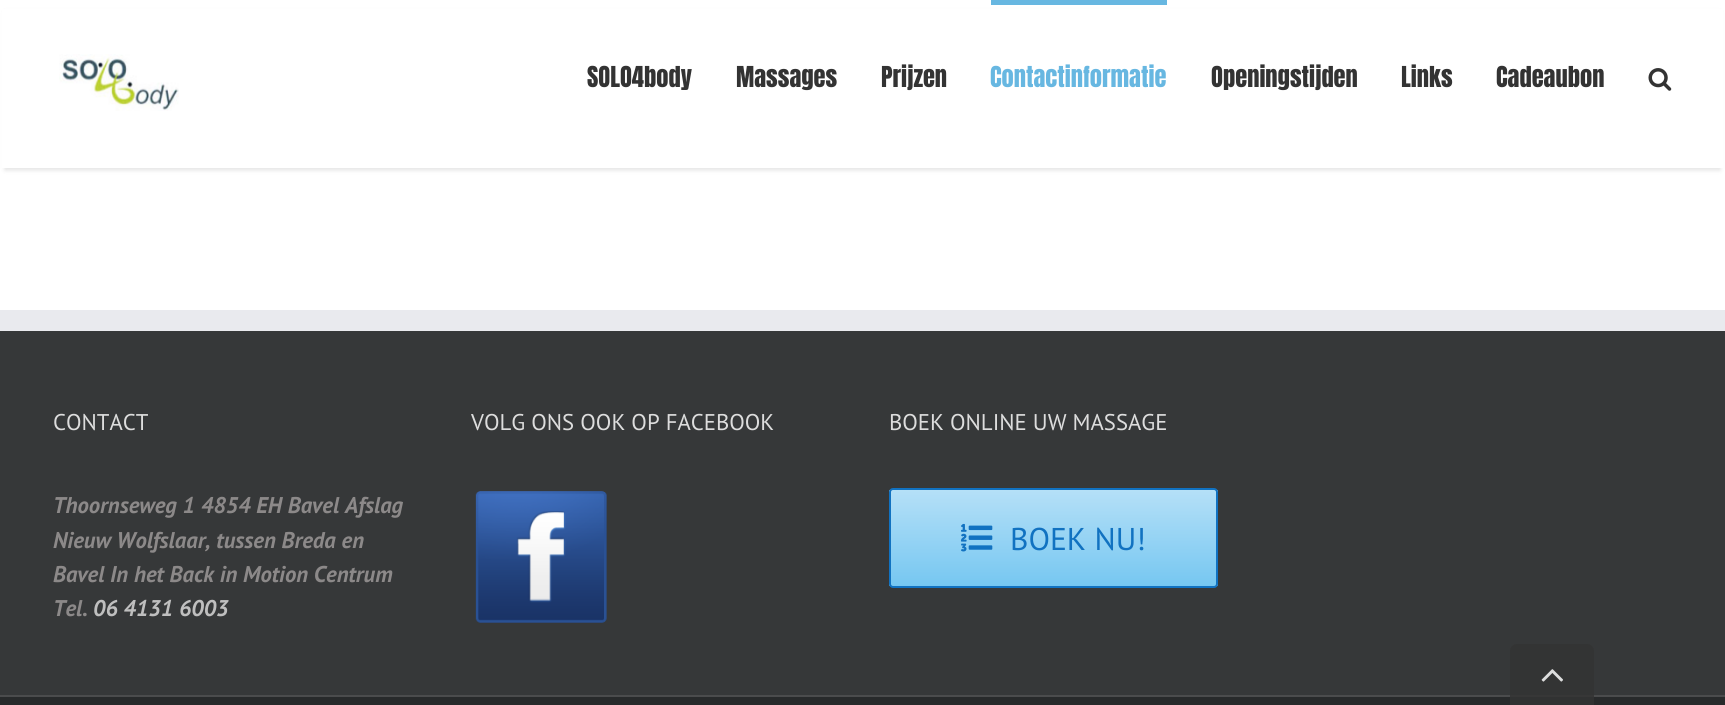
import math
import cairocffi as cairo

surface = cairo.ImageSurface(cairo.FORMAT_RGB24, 1725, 705)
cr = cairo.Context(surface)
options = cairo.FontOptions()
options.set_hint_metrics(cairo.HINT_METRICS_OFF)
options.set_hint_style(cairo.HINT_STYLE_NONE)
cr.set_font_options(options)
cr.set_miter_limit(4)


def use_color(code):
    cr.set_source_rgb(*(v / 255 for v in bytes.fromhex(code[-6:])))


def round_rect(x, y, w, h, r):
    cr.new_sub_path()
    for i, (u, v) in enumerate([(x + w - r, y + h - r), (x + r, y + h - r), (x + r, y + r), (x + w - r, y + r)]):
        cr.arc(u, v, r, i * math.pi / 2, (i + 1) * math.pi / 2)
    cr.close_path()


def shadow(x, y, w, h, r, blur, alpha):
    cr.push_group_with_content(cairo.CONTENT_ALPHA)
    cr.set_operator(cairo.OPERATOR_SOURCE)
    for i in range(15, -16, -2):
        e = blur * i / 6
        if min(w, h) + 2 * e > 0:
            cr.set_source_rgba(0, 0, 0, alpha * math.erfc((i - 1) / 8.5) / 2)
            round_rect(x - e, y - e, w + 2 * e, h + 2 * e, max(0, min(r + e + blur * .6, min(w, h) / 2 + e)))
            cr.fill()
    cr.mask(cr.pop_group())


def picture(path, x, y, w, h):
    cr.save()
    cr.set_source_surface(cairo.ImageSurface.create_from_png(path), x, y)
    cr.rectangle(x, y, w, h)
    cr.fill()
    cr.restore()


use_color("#ffffff")
cr.paint()
use_color("#000000")
shadow(5, 12, 1715, 158, 0, 2.5, 0.12)
use_color("#ffffff")
cr.rectangle(2, 9, 1721, 159)
cr.fill()
picture("img1.png", 59, 54, 120, 57)
cr.select_font_face("Anton")
cr.set_font_size(24.5)
use_color("#333333")
cr.move_to(587, 87)
cr.show_text("SOLO4body")
cr.move_to(736, 87)
cr.show_text("Massages")
cr.move_to(881, 87)
cr.show_text("Prijzen")
use_color("#67b7e1")
cr.rectangle(991, 0, 176, 5)
cr.fill()
cr.move_to(990, 87)
cr.show_text("Contactinformatie")
use_color("#333333")
cr.move_to(1211, 87)
cr.show_text("Openingstijden")
cr.move_to(1401, 87)
cr.show_text("Links")
cr.move_to(1496, 87)
cr.show_text("Cadeaubon")
picture("img2.png", 1648, 68, 24, 23)
use_color("#363839")
cr.rectangle(0, 331, 1725, 364)
cr.fill()
use_color("#e9eaee")
cr.rectangle(0, 310, 1725, 21)
cr.fill()
cr.select_font_face("PT Sans")
cr.set_font_size(22.75)
use_color("#dddddd")
cr.move_to(53, 430)
cr.show_text("CONTACT")
cr.select_font_face("PT Sans", cairo.FONT_SLANT_ITALIC, cairo.FONT_WEIGHT_BOLD)
use_color("#8c8989")
cr.move_to(53, 513)
cr.show_text("Thoornseweg 1")
cr.move_to(201, 513)
cr.show_text("4854 EH Bavel")
cr.move_to(345, 513)
cr.show_text("Afslag")
cr.move_to(53, 548)
cr.show_text("Nieuw Wolfslaar, tussen Breda en")
cr.move_to(53, 582)
cr.show_text("Bavel")
cr.move_to(110, 582)
cr.show_text("In het Back in Motion Centrum")
cr.move_to(53, 616)
cr.show_text("Tel.")
use_color("#bfbfbf")
cr.move_to(93, 616)
cr.show_text("06 4131 6003")
cr.select_font_face("PT Sans")
use_color("#dddddd")
cr.move_to(471, 430)
cr.show_text("VOLG ONS OOK OP FACEBOOK")
picture("img3.png", 475, 491, 132, 132)
cr.move_to(889, 430)
cr.show_text("BOEK ONLINE UW MASSAGE")
cr.save()
round_rect(889, 488, 329, 100, 4)
cr.clip()
gradient = cairo.LinearGradient(1054, 586, 1054, 490)
gradient.add_color_stop_rgba(0, 0.463, 0.78, 0.945, 1)
gradient.add_color_stop_rgba(1, 0.71, 0.878, 0.969, 1)
cr.set_source(gradient)
cr.rectangle(889, 490, 329, 96)
cr.fill()
cr.restore()
round_rect(890, 489, 327, 98, 3)
use_color("#1172c1")
cr.stroke()
picture("img4.png", 960, 523, 33, 29)
cr.set_font_size(31.5)
cr.move_to(1010, 550)
cr.show_text("BOEK NU!")
use_color("#282a2b")
cr.rectangle(0, 697, 1725, 8)
cr.fill()
use_color("#4b4c4d")
cr.rectangle(0, 695, 1725, 2)
cr.fill()
cr.set_source_rgba(0.2, 0.2, 0.2, 0.84)
cr.new_path()
cr.move_to(1517, 644)
cr.line_to(1587, 644)
cr.curve_to(1591, 644, 1594, 647, 1594, 651)
cr.line_to(1594, 705)
cr.line_to(1510, 705)
cr.line_to(1510, 651)
cr.curve_to(1510, 647, 1513, 644, 1517, 644)
cr.close_path()
cr.fill()
picture("img5.png", 1541, 669, 22, 13)
surface.write_to_png("result.png")
